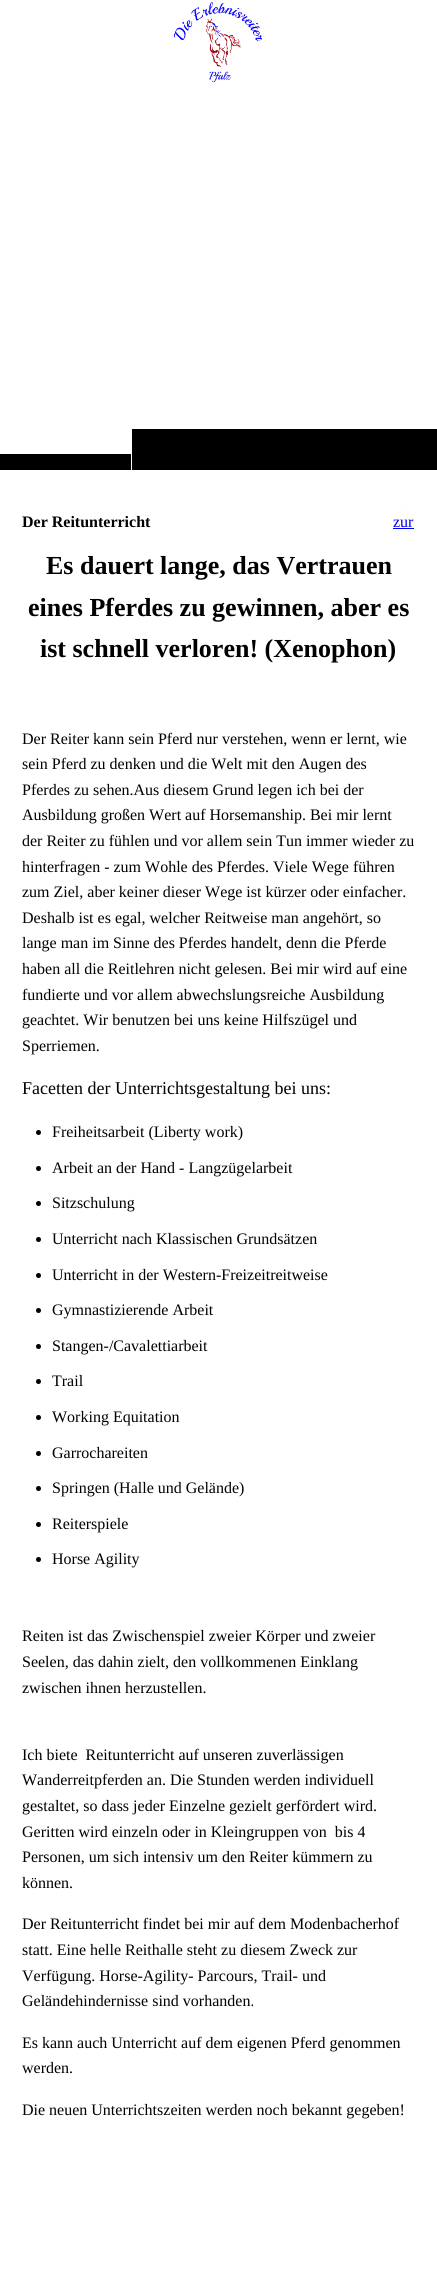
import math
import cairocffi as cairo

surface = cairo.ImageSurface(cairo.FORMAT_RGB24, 437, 2289)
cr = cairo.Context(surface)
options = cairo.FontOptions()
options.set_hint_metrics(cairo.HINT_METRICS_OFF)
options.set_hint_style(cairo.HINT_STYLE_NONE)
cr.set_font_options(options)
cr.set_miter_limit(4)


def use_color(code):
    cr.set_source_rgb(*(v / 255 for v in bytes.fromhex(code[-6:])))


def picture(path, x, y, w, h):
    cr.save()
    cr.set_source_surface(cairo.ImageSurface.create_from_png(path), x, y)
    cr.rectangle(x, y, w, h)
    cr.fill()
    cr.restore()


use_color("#ffffff")
cr.paint()
picture("img1.png", 173, 2, 89, 81)
use_color("#000000")
cr.rectangle(0, 454, 131, 16)
cr.fill()
cr.rectangle(132, 429, 305, 41)
cr.fill()
cr.select_font_face("Liberation Serif", cairo.FONT_SLANT_NORMAL, cairo.FONT_WEIGHT_BOLD)
cr.set_font_size(16)
cr.move_to(22, 527)
cr.show_text("Der Reitunterricht")
use_color("#fffefc")
cr.new_path()
cr.move_to(404, 509)
cr.curve_to(410, 509, 415, 514, 415, 520)
cr.line_to(415, 529)
cr.line_to(393, 529)
cr.line_to(393, 520)
cr.curve_to(393, 514, 398, 509, 404, 509)
cr.close_path()
cr.fill()
cr.select_font_face("Liberation Serif")
use_color("#0000ee")
cr.move_to(393, 527)
cr.show_text("zur")
cr.rectangle(393, 528, 21, 1)
cr.fill()
cr.select_font_face("Liberation Serif", cairo.FONT_SLANT_NORMAL, cairo.FONT_WEIGHT_BOLD)
cr.set_font_size(26)
use_color("#000000")
cr.move_to(46, 574)
cr.show_text("Es dauert lange, das Vertrauen")
cr.move_to(28, 616)
cr.show_text("eines Pferdes zu gewinnen, aber es")
cr.move_to(40, 657)
cr.show_text("ist schnell verloren! (Xenophon)")
cr.select_font_face("Liberation Serif")
cr.set_font_size(16)
cr.move_to(22, 744)
cr.show_text("Der Reiter kann sein Pferd nur verstehen, wenn er lernt, wie")
cr.move_to(22, 769)
cr.show_text("sein Pferd zu denken und die Welt mit den Augen des")
cr.move_to(22, 795)
cr.show_text("Pferdes zu sehen.Aus diesem Grund legen ich bei der")
cr.move_to(22, 820)
cr.show_text("Ausbildung großen Wert auf Horsemanship. Bei mir lernt")
cr.move_to(22, 846)
cr.show_text("der Reiter zu fühlen und vor allem sein Tun immer wieder zu")
cr.move_to(22, 872)
cr.show_text("hinterfragen - zum Wohle des Pferdes. Viele Wege führen")
cr.move_to(22, 897)
cr.show_text("zum Ziel, aber keiner dieser Wege ist kürzer oder einfacher.")
cr.move_to(22, 923)
cr.show_text("Deshalb ist es egal, welcher Reitweise man angehört, so")
cr.move_to(22, 948)
cr.show_text("lange man im Sinne des Pferdes handelt, denn die Pferde")
cr.move_to(22, 974)
cr.show_text("haben all die Reitlehren nicht gelesen. Bei mir wird auf eine")
cr.move_to(22, 1000)
cr.show_text("fundierte und vor allem abwechslungsreiche Ausbildung")
cr.move_to(22, 1025)
cr.show_text("geachtet. Wir benutzen bei uns keine Hilfszügel und")
cr.move_to(22, 1051)
cr.show_text("Sperriemen.")
cr.set_font_size(18)
cr.move_to(22, 1094)
cr.show_text("Facetten der Unterrichtsgestaltung bei uns:")
cr.new_path()
cr.arc(38.5, 1132.5, 2.5, 0, 2 * math.pi)
cr.fill()
cr.set_font_size(16)
cr.move_to(52, 1137)
cr.show_text("Freiheitsarbeit (Liberty work)")
cr.new_path()
cr.arc(38.5, 1168.5, 2.5, 0, 2 * math.pi)
cr.fill()
cr.move_to(52, 1173)
cr.show_text("Arbeit an der Hand - Langzügelarbeit")
cr.new_path()
cr.arc(38.5, 1203.5, 2.5, 0, 2 * math.pi)
cr.fill()
cr.move_to(52, 1208)
cr.show_text("Sitzschulung")
cr.new_path()
cr.arc(38.5, 1239.5, 2.5, 0, 2 * math.pi)
cr.fill()
cr.move_to(52, 1244)
cr.show_text("Unterricht nach Klassischen Grundsätzen")
cr.new_path()
cr.arc(38.5, 1275.5, 2.5, 0, 2 * math.pi)
cr.fill()
cr.move_to(52, 1280)
cr.show_text("Unterricht in der Western-Freizeitreitweise")
cr.new_path()
cr.arc(38.5, 1310.5, 2.5, 0, 2 * math.pi)
cr.fill()
cr.move_to(52, 1315)
cr.show_text("Gymnastizierende Arbeit")
cr.new_path()
cr.arc(38.5, 1346.5, 2.5, 0, 2 * math.pi)
cr.fill()
cr.move_to(52, 1351)
cr.show_text("Stangen-/Cavalettiarbeit")
cr.new_path()
cr.arc(38.5, 1381.5, 2.5, 0, 2 * math.pi)
cr.fill()
cr.move_to(52, 1386)
cr.show_text("Trail")
cr.new_path()
cr.arc(38.5, 1417.5, 2.5, 0, 2 * math.pi)
cr.fill()
cr.move_to(52, 1422)
cr.show_text("Working Equitation")
cr.new_path()
cr.arc(38.5, 1453.5, 2.5, 0, 2 * math.pi)
cr.fill()
cr.move_to(52, 1458)
cr.show_text("Garrochareiten")
cr.new_path()
cr.arc(38.5, 1488.5, 2.5, 0, 2 * math.pi)
cr.fill()
cr.move_to(52, 1493)
cr.show_text("Springen (Halle und Gelände)")
cr.new_path()
cr.arc(38.5, 1524.5, 2.5, 0, 2 * math.pi)
cr.fill()
cr.move_to(52, 1529)
cr.show_text("Reiterspiele")
cr.new_path()
cr.arc(38.5, 1559.5, 2.5, 0, 2 * math.pi)
cr.fill()
cr.move_to(52, 1564)
cr.show_text("Horse Agility")
cr.move_to(22, 1641)
cr.show_text("Reiten ist das Zwischenspiel zweier Körper und zweier")
cr.move_to(22, 1667)
cr.show_text("Seelen, das dahin zielt, den vollkommenen Einklang")
cr.move_to(22, 1693)
cr.show_text("zwischen ihnen herzustellen.")
cr.move_to(22, 1760)
cr.show_text("Ich biete  Reitunterricht auf unseren zuverlässigen")
cr.move_to(22, 1785)
cr.show_text("Wanderreitpferden an. Die Stunden werden individuell")
cr.move_to(22, 1811)
cr.show_text("gestaltet, so dass jeder Einzelne gezielt gerfördert wird.")
cr.move_to(22, 1837)
cr.show_text("Geritten wird einzeln oder in Kleingruppen von  bis 4")
cr.move_to(22, 1862)
cr.show_text("Personen, um sich intensiv um den Reiter kümmern zu")
cr.move_to(22, 1888)
cr.show_text("können.")
cr.move_to(22, 1929)
cr.show_text("Der Reitunterricht findet bei mir auf dem Modenbacherhof")
cr.move_to(22, 1955)
cr.show_text("statt. Eine helle Reithalle steht zu diesem Zweck zur")
cr.move_to(22, 1981)
cr.show_text("Verfügung. Horse-Agility- Parcours, Trail- und")
cr.move_to(22, 2006)
cr.show_text("Geländehindernisse sind vorhanden.")
cr.move_to(22, 2048)
cr.show_text("Es kann auch Unterricht auf dem eigenen Pferd genommen")
cr.move_to(22, 2073)
cr.show_text("werden.")
cr.move_to(22, 2115)
cr.show_text("Die neuen Unterrichtszeiten werden noch bekannt gegeben!")
surface.write_to_png("result.png")
